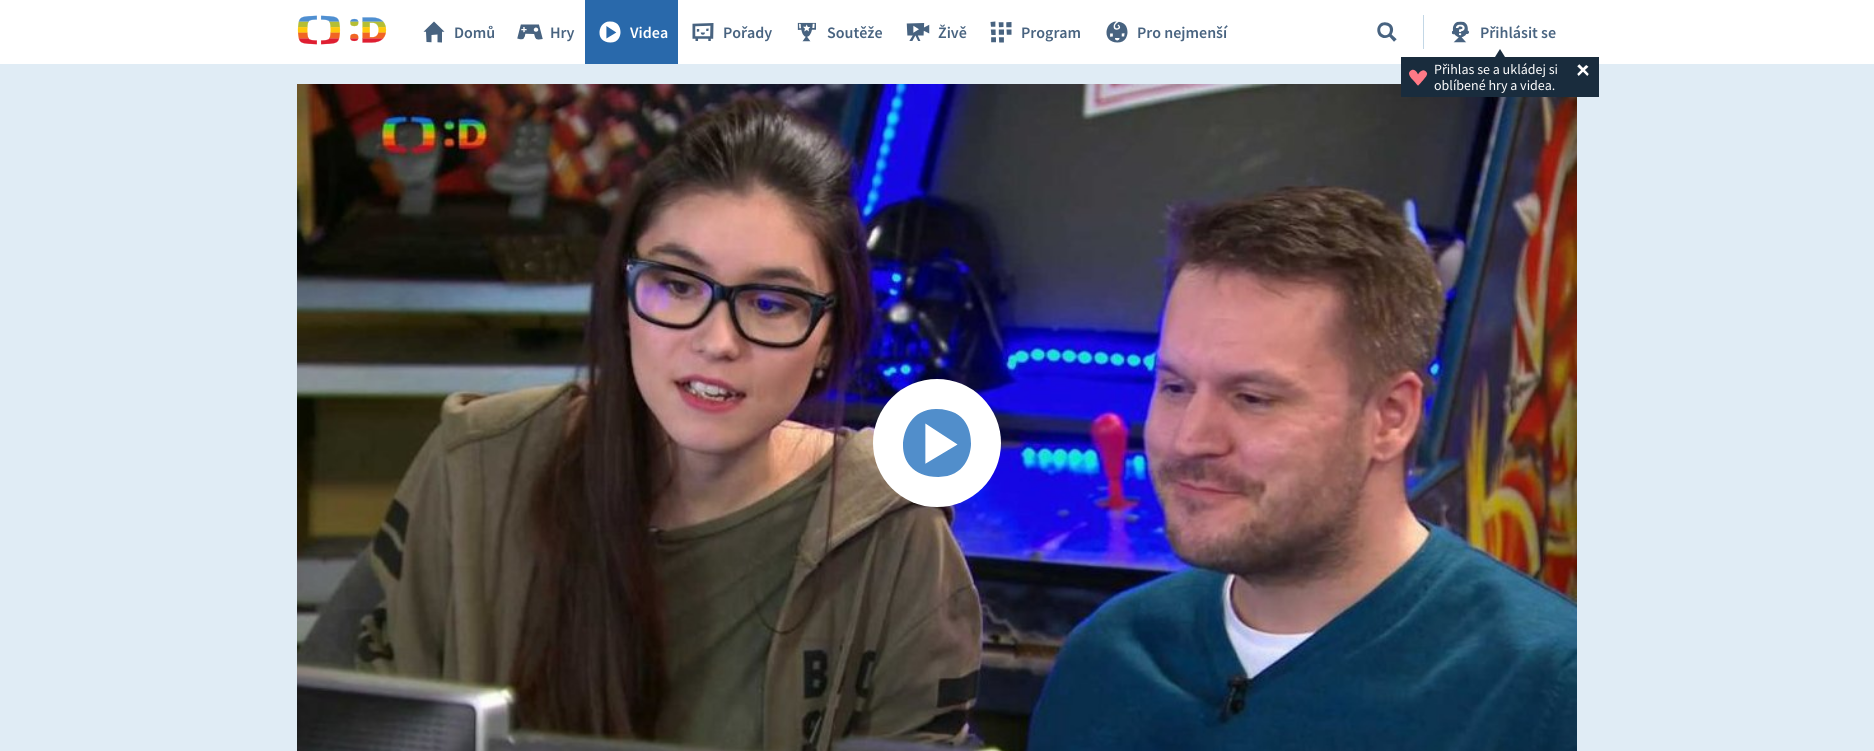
import math
import cairocffi as cairo

surface = cairo.ImageSurface(cairo.FORMAT_RGB24, 1874, 751)
cr = cairo.Context(surface)
options = cairo.FontOptions()
options.set_hint_metrics(cairo.HINT_METRICS_OFF)
options.set_hint_style(cairo.HINT_STYLE_NONE)
cr.set_font_options(options)
cr.set_miter_limit(4)


def use_color(code):
    cr.set_source_rgb(*(v / 255 for v in bytes.fromhex(code[-6:])))


def picture(path, x, y, w, h):
    cr.save()
    cr.set_source_surface(cairo.ImageSurface.create_from_png(path), x, y)
    cr.rectangle(x, y, w, h)
    cr.fill()
    cr.restore()


use_color("#e0ecf5")
cr.paint()
use_color("#ffffff")
cr.rectangle(0, 0, 1874, 64)
cr.fill()
picture("img1.png", 297, 15, 90, 30)
picture("img2.png", 423, 21, 22, 22)
cr.select_font_face("Source Sans Pro SemiBold")
cr.set_font_size(16)
use_color("#486380")
cr.move_to(454, 38)
cr.show_text("Domů")
picture("img3.png", 517, 24, 26, 16)
cr.move_to(550, 38)
cr.show_text("Hry")
use_color("#2969ab")
cr.rectangle(585, 0, 93, 64)
cr.fill()
picture("img4.png", 599, 21, 22, 22)
use_color("#ffffff")
cr.move_to(630, 38)
cr.show_text("Videa")
picture("img5.png", 692, 23, 22, 18)
use_color("#486380")
cr.move_to(723, 38)
cr.show_text("Pořady")
picture("img6.png", 797, 22, 19, 20)
cr.move_to(827, 38)
cr.show_text("Soutěže")
picture("img7.png", 906, 23, 24, 18)
cr.move_to(938, 38)
cr.show_text("Živě")
picture("img8.png", 990, 21, 22, 22)
cr.move_to(1021, 38)
cr.show_text("Program")
picture("img9.png", 1106, 21, 22, 22)
cr.move_to(1137, 38)
cr.show_text("Pro nejmenší")
picture("img10.png", 1377, 22, 20, 20)
use_color("#c3d7e6")
cr.rectangle(1423, 15, 1, 34)
cr.fill()
picture("img11.png", 1451, 21, 18, 22)
use_color("#486380")
cr.move_to(1480, 38)
cr.show_text("Přihlásit se")
picture("img14.png", 297, 84, 1280, 667)
use_color("#192c3d")
cr.rectangle(1401, 57, 198, 40)
cr.fill()
cr.new_path()
cr.move_to(1505, 57)
cr.line_to(1495, 57)
cr.line_to(1500, 49)
cr.close_path()
cr.fill()
picture("img12.png", 1409, 69, 19, 17)
cr.select_font_face("Source Sans Pro")
cr.set_font_size(14)
use_color("#ffffff")
cr.move_to(1434, 74)
cr.show_text("Přihlas se a ukládej si")
cr.move_to(1434, 90)
cr.show_text("oblíbené hry a videa.")
picture("img13.png", 1577, 64, 12, 12)
picture("img15.png", 873, 379, 128, 128)
surface.write_to_png("result.png")
